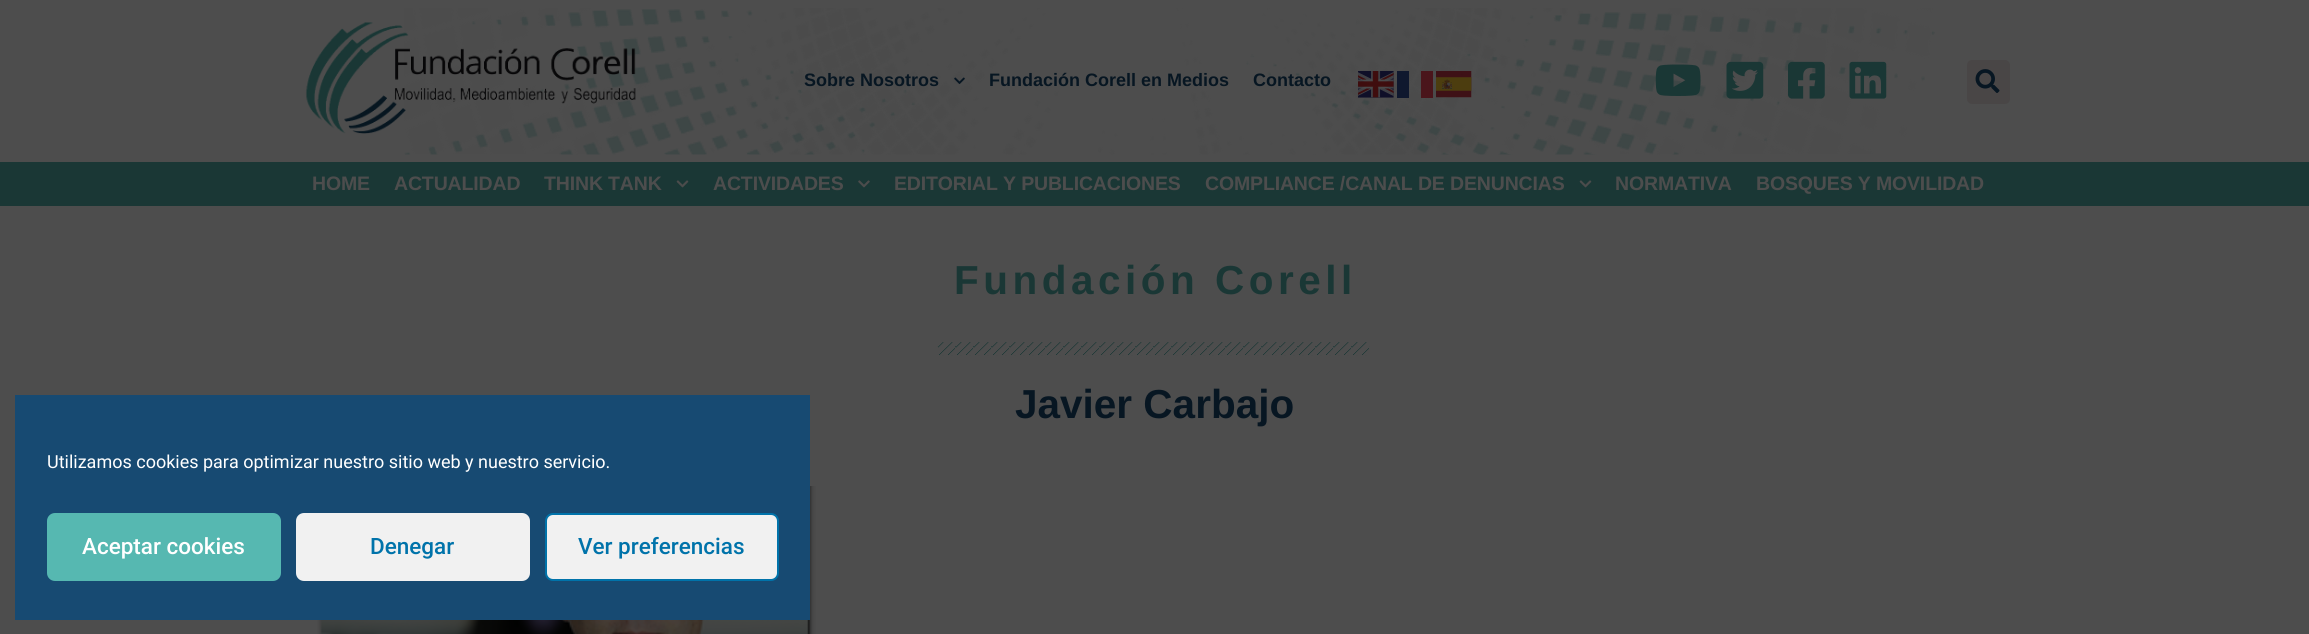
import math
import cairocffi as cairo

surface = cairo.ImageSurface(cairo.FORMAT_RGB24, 2309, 634)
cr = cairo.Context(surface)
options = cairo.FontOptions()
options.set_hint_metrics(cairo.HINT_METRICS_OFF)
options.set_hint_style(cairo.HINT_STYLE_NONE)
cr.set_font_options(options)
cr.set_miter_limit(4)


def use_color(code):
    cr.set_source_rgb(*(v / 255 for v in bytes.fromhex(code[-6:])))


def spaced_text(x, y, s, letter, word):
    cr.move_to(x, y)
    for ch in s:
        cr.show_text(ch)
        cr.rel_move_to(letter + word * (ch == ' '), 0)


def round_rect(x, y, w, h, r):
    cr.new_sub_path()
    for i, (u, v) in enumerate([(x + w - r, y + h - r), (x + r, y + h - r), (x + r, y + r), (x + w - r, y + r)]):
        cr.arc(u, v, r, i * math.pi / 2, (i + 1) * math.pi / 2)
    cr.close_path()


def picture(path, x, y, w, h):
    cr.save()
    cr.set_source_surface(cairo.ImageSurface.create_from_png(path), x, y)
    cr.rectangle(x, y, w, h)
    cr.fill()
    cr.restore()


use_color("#4d4d4d")
cr.paint()
picture("img1.png", 404, 8, 1531, 147)
picture("img2.png", 305, 22, 331, 112)
cr.select_font_face("Liberation Sans", cairo.FONT_SLANT_NORMAL, cairo.FONT_WEIGHT_BOLD)
cr.set_font_size(18)
use_color("#071622")
cr.move_to(804, 86)
cr.show_text("Sobre Nosotros")
picture("img3.png", 954, 77, 11, 7)
cr.move_to(989, 86)
cr.show_text("Fundación Corell en Medios")
cr.move_to(1253, 86)
cr.show_text("Contacto")
picture("img4.png", 1358, 71, 36, 27)
use_color("#0f182e")
cr.rectangle(1397, 71, 12, 27)
cr.fill()
use_color("#4a151b")
cr.rectangle(1421, 71, 12, 27)
cr.fill()
picture("img5.png", 1436, 71, 36, 27)
picture("img6.png", 1655, 64, 46, 32)
picture("img7.png", 1726, 61, 38, 38)
picture("img8.png", 1788, 61, 37, 38)
picture("img9.png", 1849, 61, 38, 38)
use_color("#494646")
round_rect(1967, 60, 43, 44, 5)
cr.fill()
picture("img10.png", 1975, 69, 25, 24)
use_color("#1a3735")
cr.rectangle(0, 162, 2309, 44)
cr.fill()
cr.set_font_size(19.5)
use_color("#4d4d4d")
spaced_text(312, 190, "HOME", -0.15, 0)
spaced_text(394, 190, "ACTUALIDAD", -0.15, 0)
spaced_text(544, 190, "THINK TANK", -0.15, 0)
picture("img11.png", 676, 180, 13, 8)
spaced_text(713, 190, "ACTIVIDADES", -0.15, 0)
picture("img12.png", 858, 180, 12, 8)
spaced_text(894, 190, "EDITORIAL Y PUBLICACIONES", -0.15, 0)
spaced_text(1205, 190, "COMPLIANCE /CANAL DE DENUNCIAS", -0.15, 0)
picture("img11.png", 1579, 180, 13, 8)
spaced_text(1615, 190, "NORMATIVA", -0.15, 0)
spaced_text(1756, 190, "BOSQUES Y MOVILIDAD", -0.15, 0)
cr.set_font_size(40.5)
use_color("#1a3735")
spaced_text(954, 294, "Fundación Corell", 4.5, 0)
picture("img13.png", 937, 342, 433, 14)
use_color("#071622")
cr.move_to(1015, 418)
cr.show_text("Javier Carbajo")
picture("img14.png", 317, 486, 499, 148)
use_color("#174a72")
cr.rectangle(15, 395, 795, 225)
cr.fill()
cr.select_font_face("Roboto")
cr.set_font_size(18)
use_color("#ffffff")
cr.move_to(47, 468)
cr.show_text("Utilizamos cookies para optimizar nuestro sitio web y nuestro servicio.")
use_color("#56b8b1")
round_rect(48, 514, 232, 66, 7)
cr.fill_preserve()
cr.stroke()
cr.select_font_face("Roboto Medium")
cr.set_font_size(22.5)
use_color("#ffffff")
cr.move_to(82, 554)
cr.show_text("Aceptar cookies")
use_color("#f1f1f1")
round_rect(297, 514, 232, 66, 7)
cr.fill_preserve()
cr.stroke()
use_color("#0073aa")
cr.move_to(370, 554)
cr.show_text("Denegar")
use_color("#f1f1f1")
round_rect(546, 514, 232, 66, 7)
cr.fill_preserve()
use_color("#0073aa")
cr.stroke()
cr.move_to(578, 554)
cr.show_text("Ver preferencias")
surface.write_to_png("result.png")
